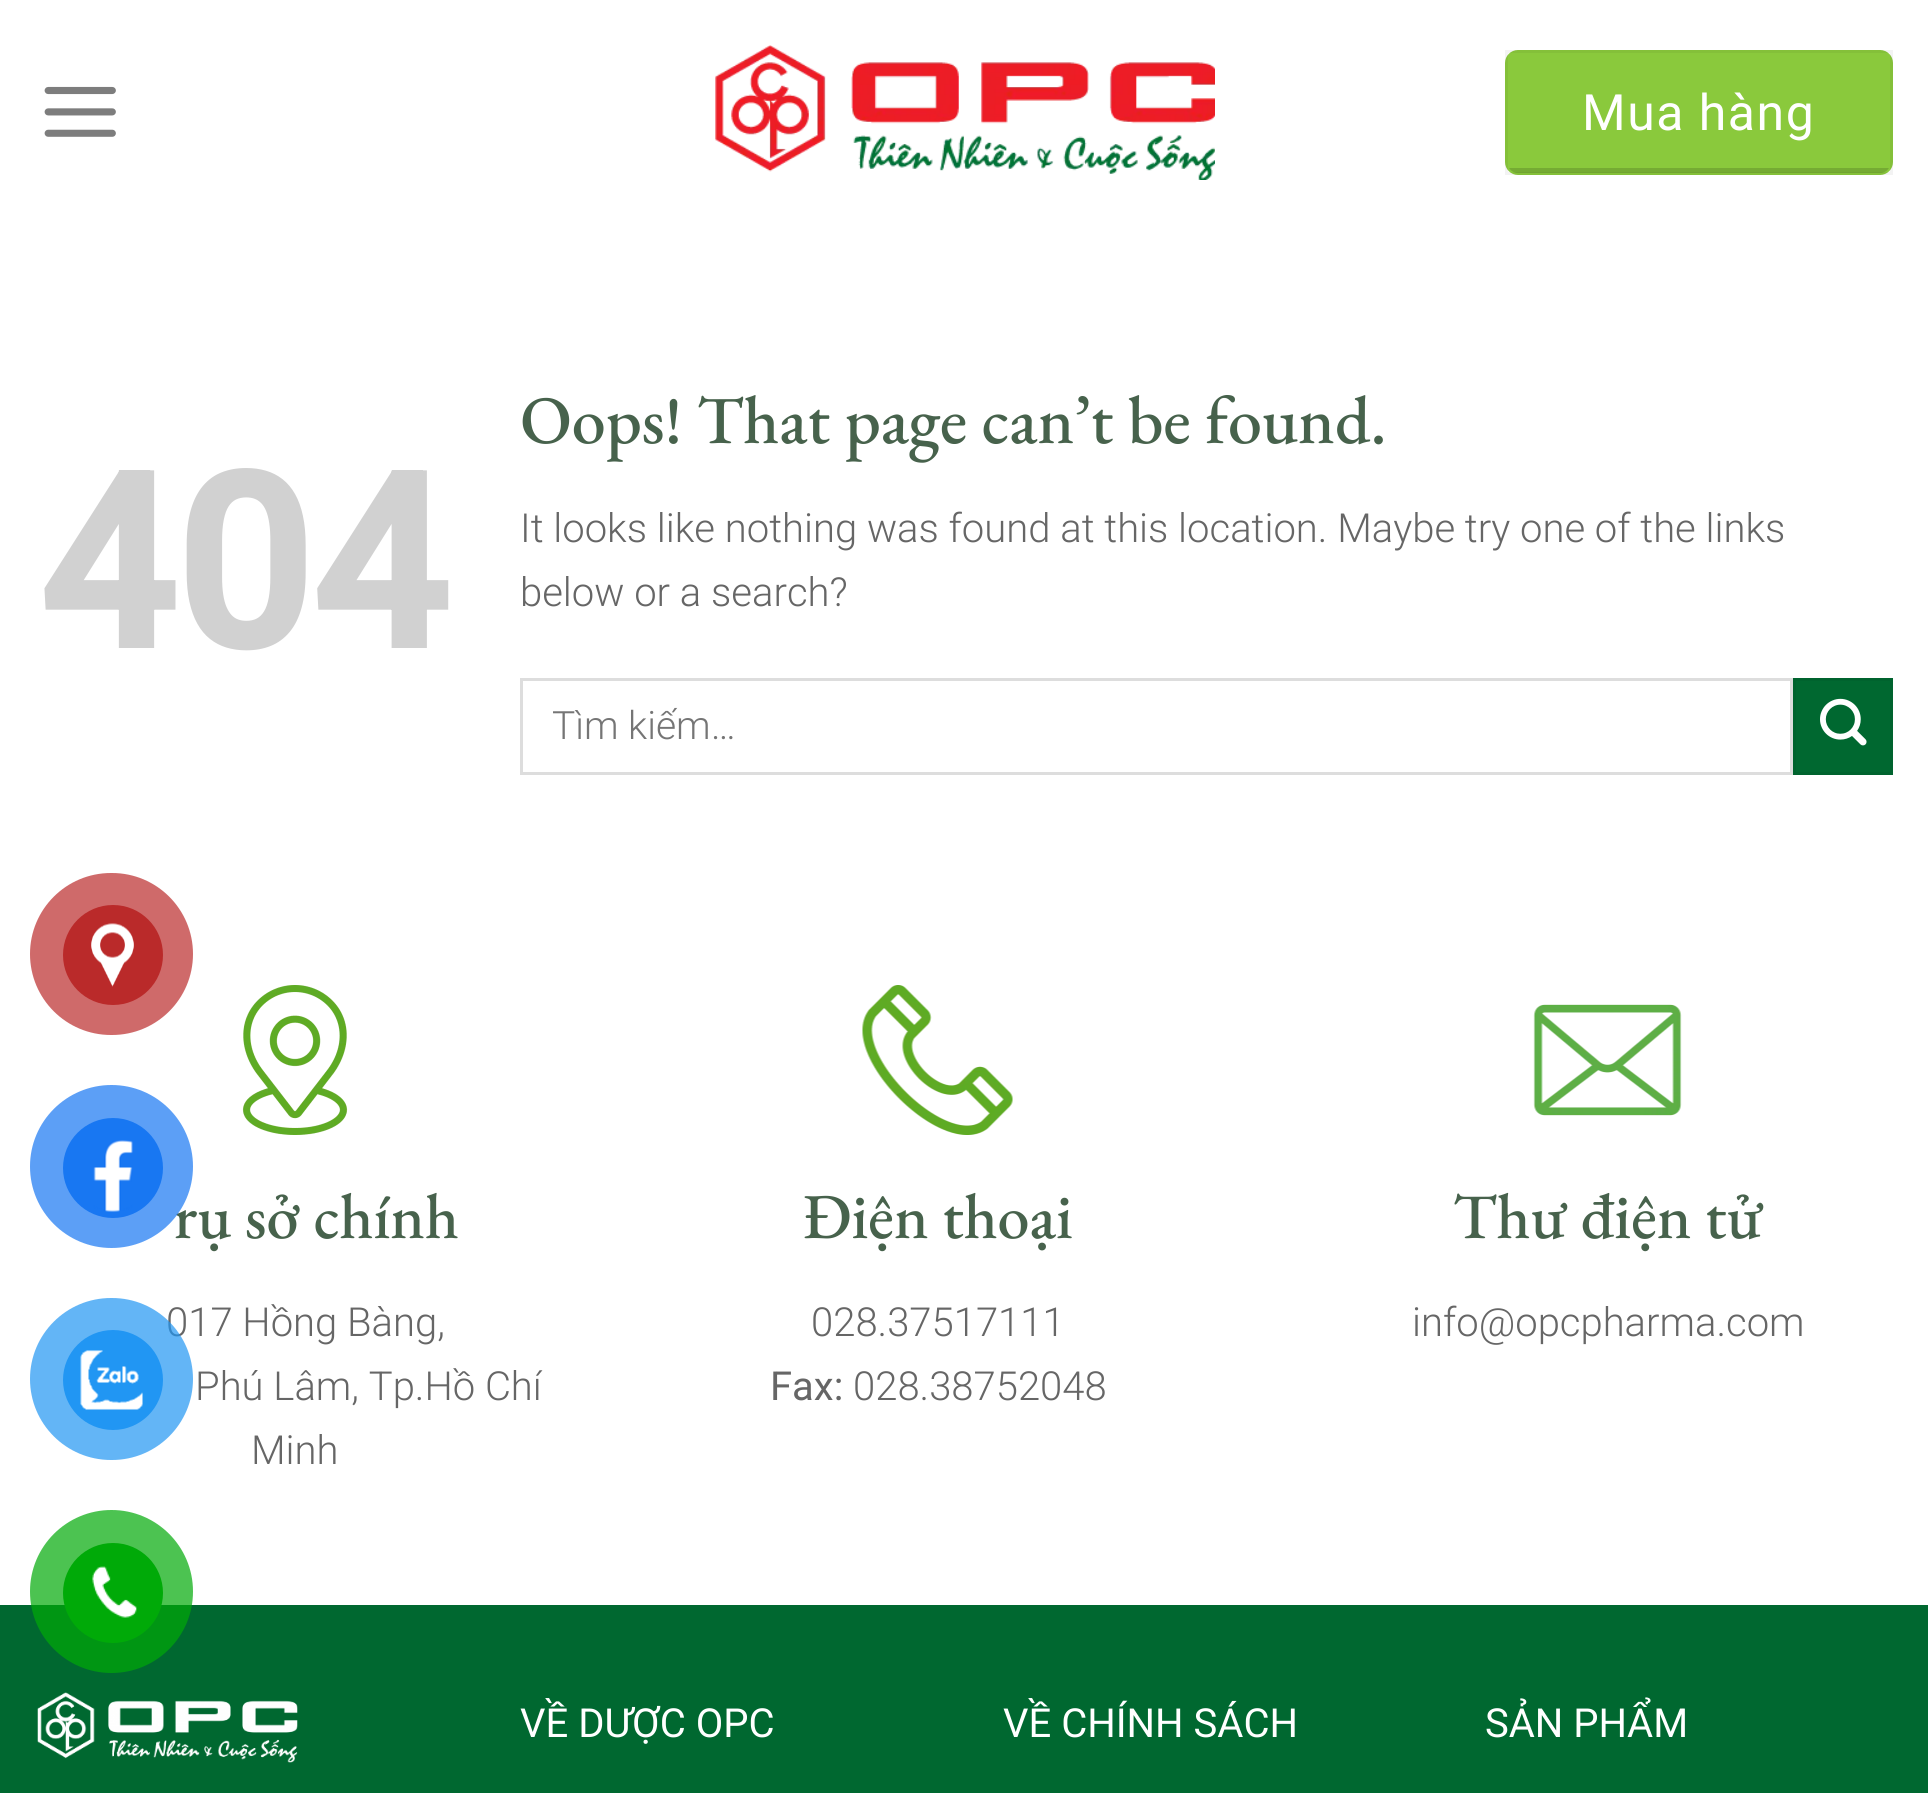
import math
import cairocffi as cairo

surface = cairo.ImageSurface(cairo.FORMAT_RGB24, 1928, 1793)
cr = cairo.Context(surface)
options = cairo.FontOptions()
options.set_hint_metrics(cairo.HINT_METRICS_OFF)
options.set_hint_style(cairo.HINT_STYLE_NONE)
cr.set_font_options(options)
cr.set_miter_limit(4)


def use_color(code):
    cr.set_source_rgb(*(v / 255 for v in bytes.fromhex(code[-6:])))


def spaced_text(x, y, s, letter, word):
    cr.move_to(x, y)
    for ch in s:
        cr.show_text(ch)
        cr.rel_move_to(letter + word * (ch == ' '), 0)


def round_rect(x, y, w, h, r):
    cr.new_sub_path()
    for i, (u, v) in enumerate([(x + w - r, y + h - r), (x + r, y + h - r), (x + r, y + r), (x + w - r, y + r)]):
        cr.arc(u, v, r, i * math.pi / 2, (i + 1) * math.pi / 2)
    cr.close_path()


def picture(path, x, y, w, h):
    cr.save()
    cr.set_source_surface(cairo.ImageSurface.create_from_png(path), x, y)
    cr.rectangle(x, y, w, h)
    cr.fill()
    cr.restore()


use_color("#ffffff")
cr.paint()
picture("img1.png", 44, 86, 72, 51)
picture("img2.png", 715, 45, 500, 135)
use_color("#8ac93c")
round_rect(1505, 50, 388, 125, 13)
cr.fill()
cr.rectangle(1506.5, 51.5, 385, 122)
cr.set_source_rgba(0, 0, 0, 0.05)
cr.set_line_width(3)
cr.stroke()
cr.select_font_face("Roboto")
cr.set_font_size(50)
use_color("#ffffff")
spaced_text(1582, 130, "Mua hàng", 1.5, 0)
cr.set_source_rgba(0, 0, 0, 0.15)
cr.new_path()
cr.move_to(1509, 168)
cr.curve_to(1511, 171, 1514, 173, 1518, 173)
cr.line_to(1880, 173)
cr.curve_to(1884, 173, 1887, 171, 1889, 168)
cr.close_path()
cr.fill()
cr.select_font_face("Roboto", cairo.FONT_SLANT_NORMAL, cairo.FONT_WEIGHT_BOLD)
cr.set_font_size(240)
use_color("#d1d1d1")
cr.move_to(38, 648)
cr.show_text("404")
cr.select_font_face("EB Garamond Medium")
cr.set_font_size(68)
use_color("#47624c")
cr.move_to(520, 443)
cr.show_text("Oops! That page can’t be found.")
cr.select_font_face("Roboto Light")
cr.set_font_size(40)
use_color("#666666")
cr.move_to(520, 542)
cr.show_text("It looks like nothing was found at this location. Maybe try one of the links")
cr.move_to(520, 606)
cr.show_text("below or a search?")
cr.rectangle(521.5, 679.5, 1270, 94)
use_color("#dddddd")
cr.stroke()
cr.save()
cr.rectangle(553, 705, 1200, 45)
cr.clip()
cr.set_font_size(39)
use_color("#757575")
cr.move_to(552, 739)
cr.show_text("Tìm kiếm…")
cr.restore()
use_color("#006830")
cr.rectangle(1794.5, 679.5, 97, 94)
cr.fill_preserve()
use_color("#00632e")
cr.stroke()
picture("img3.png", 1820, 698, 47, 48)
picture("img4.png", 242, 985, 106, 150)
cr.select_font_face("EB Garamond Medium")
cr.set_font_size(64)
use_color("#47624c")
cr.move_to(174, 1238)
cr.show_text("rụ sở chính")
cr.select_font_face("Roboto Light")
cr.set_font_size(40)
use_color("#666666")
cr.move_to(166, 1336)
cr.show_text("017 Hồng Bàng,")
cr.move_to(195, 1400)
cr.show_text("Phú Lâm, Tp.Hồ Chí")
cr.move_to(251, 1464)
cr.show_text("Minh")
picture("img5.png", 862, 985, 151, 150)
cr.select_font_face("EB Garamond Medium")
cr.set_font_size(64)
use_color("#47624c")
cr.move_to(803, 1238)
cr.show_text("Điện thoại")
cr.select_font_face("Roboto Light")
cr.set_font_size(40)
use_color("#666666")
cr.move_to(811, 1336)
cr.show_text("028.37517111")
cr.select_font_face("Roboto")
cr.move_to(770, 1400)
cr.show_text("Fax:")
cr.select_font_face("Roboto Light")
cr.move_to(853, 1400)
cr.show_text("028.38752048")
picture("img6.png", 1533, 1004, 149, 112)
cr.select_font_face("EB Garamond Medium")
cr.set_font_size(64)
use_color("#47624c")
cr.move_to(1453, 1238)
cr.show_text("Thư điện tử")
cr.select_font_face("Roboto Light")
cr.set_font_size(40)
use_color("#666666")
cr.move_to(1412, 1336)
cr.show_text("info@opcpharma.com")
use_color("#006830")
cr.rectangle(0, 1605, 1928, 188)
cr.fill()
picture("img7.png", 37, 1692, 261, 71)
cr.select_font_face("Roboto")
use_color("#ffffff")
cr.move_to(520, 1737)
cr.show_text("VỀ DƯỢC OPC")
cr.move_to(1003, 1737)
cr.show_text("VỀ CHÍNH SÁCH")
cr.move_to(1485, 1737)
cr.show_text("SẢN PHẨM")
use_color("#cf6a6a")
round_rect(30, 873, 163, 162, 81)
cr.fill()
use_color("#ba2a2a")
cr.arc(113, 955, 50, 0, 2 * math.pi)
cr.fill()
picture("img8.png", 91, 923, 43, 64)
cr.set_source_rgba(0.094, 0.467, 0.949, 0.7)
cr.arc(111.5, 1166.5, 81.5, 0, 2 * math.pi)
cr.fill()
use_color("#1877f2")
cr.arc(113, 1168, 50, 0, 2 * math.pi)
cr.fill()
picture("img9.png", 93, 1140, 40, 72)
cr.set_source_rgba(0.129, 0.588, 0.953, 0.7)
round_rect(30, 1298, 163, 162, 81)
cr.fill()
use_color("#2196f3")
cr.arc(113, 1380, 50, 0, 2 * math.pi)
cr.fill()
picture("img10.png", 80, 1350, 63, 60)
cr.set_source_rgba(0, 0.667, 0.031, 0.7)
cr.arc(111.5, 1591.5, 81.5, 0, 2 * math.pi)
cr.fill()
use_color("#00aa08")
cr.arc(113, 1593, 50, 0, 2 * math.pi)
cr.fill()
picture("img11.png", 92, 1566, 45, 52)
surface.write_to_png("result.png")
